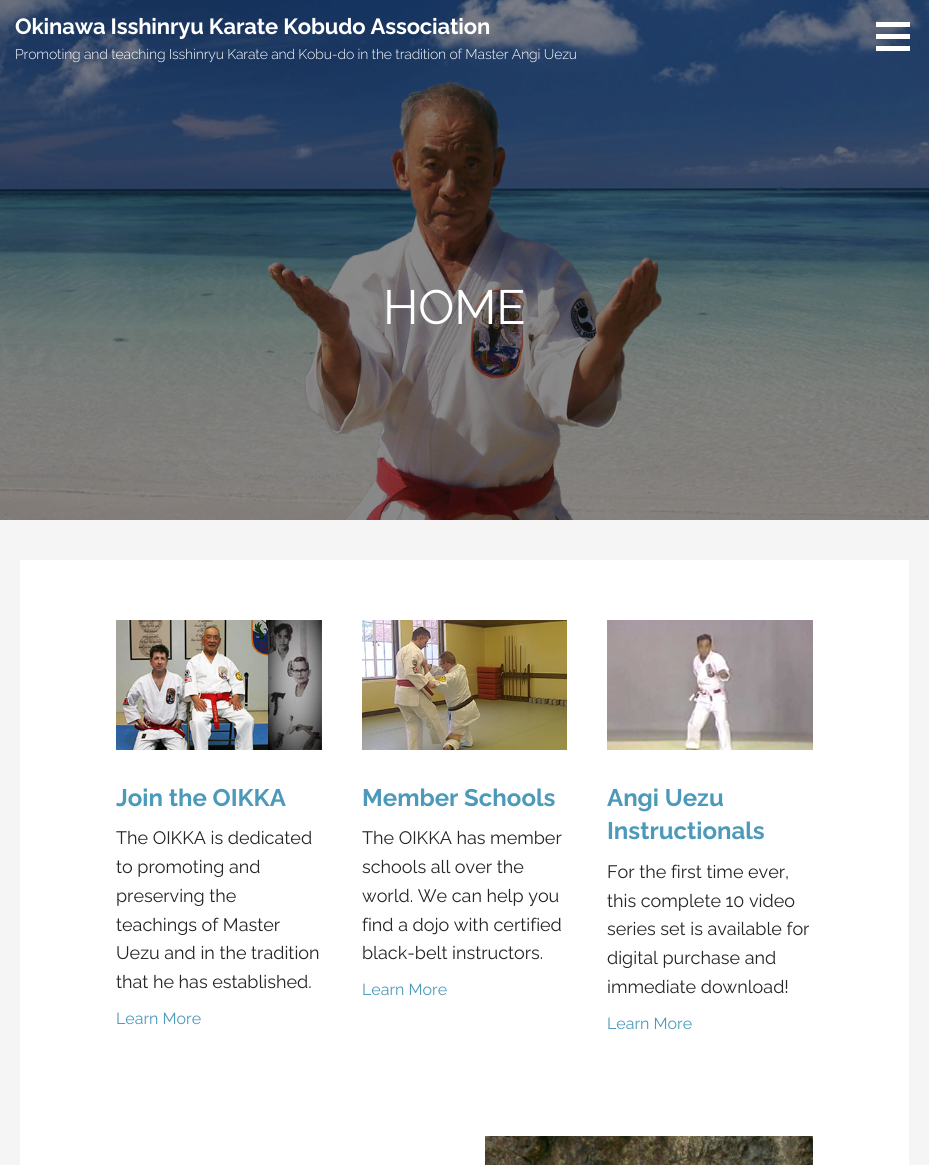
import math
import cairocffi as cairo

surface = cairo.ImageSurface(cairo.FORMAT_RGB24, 929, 1165)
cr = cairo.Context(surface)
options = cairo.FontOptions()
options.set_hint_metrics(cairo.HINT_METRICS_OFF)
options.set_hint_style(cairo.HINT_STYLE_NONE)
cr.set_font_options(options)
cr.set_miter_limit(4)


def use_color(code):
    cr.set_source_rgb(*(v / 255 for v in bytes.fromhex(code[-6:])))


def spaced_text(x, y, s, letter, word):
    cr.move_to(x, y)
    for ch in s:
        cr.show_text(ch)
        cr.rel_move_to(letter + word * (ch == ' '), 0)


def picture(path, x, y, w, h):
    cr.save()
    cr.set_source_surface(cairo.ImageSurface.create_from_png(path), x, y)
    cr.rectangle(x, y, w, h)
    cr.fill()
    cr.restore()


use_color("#f5f5f5")
cr.paint()
picture("img1.png", 0, 0, 929, 520)
cr.select_font_face("Raleway", cairo.FONT_SLANT_NORMAL, cairo.FONT_WEIGHT_BOLD)
cr.set_font_size(22)
use_color("#ffffff")
spaced_text(15, 34, "Okinawa Isshinryu Karate Kobudo Association", -0.15, 0)
cr.select_font_face("Raleway Light")
cr.set_font_size(14)
spaced_text(15, 59, "Promoting and teaching Isshinryu Karate and Kobu-do in the tradition of Master Angi Uezu", -0.15, 0)
cr.rectangle(876, 22, 34, 5)
cr.fill()
cr.rectangle(876, 34, 34, 5)
cr.fill()
cr.rectangle(876, 46, 34, 5)
cr.fill()
cr.select_font_face("Raleway")
cr.set_font_size(48)
spaced_text(383, 324, "HOME", -0.15, 0)
cr.rectangle(20, 560, 889, 605)
cr.fill()
picture("img2.png", 116, 620, 206, 130)
cr.select_font_face("Raleway", cairo.FONT_SLANT_NORMAL, cairo.FONT_WEIGHT_BOLD)
cr.set_font_size(24)
use_color("#4c99ba")
cr.move_to(116, 806)
cr.show_text("Join the OIKKA")
cr.select_font_face("Raleway")
cr.set_font_size(18)
use_color("#252525")
cr.move_to(116, 844)
cr.show_text("The OIKKA is dedicated")
cr.move_to(116, 873)
cr.show_text("to promoting and")
cr.move_to(116, 902)
cr.show_text("preserving the")
cr.move_to(116, 931)
cr.show_text("teachings of Master")
cr.move_to(116, 959)
cr.show_text("Uezu and in the tradition")
cr.move_to(116, 988)
cr.show_text("that he has established.")
cr.set_font_size(16)
use_color("#4c99ba")
cr.move_to(116, 1024)
cr.show_text("Learn More")
picture("img3.png", 362, 620, 205, 130)
cr.select_font_face("Raleway", cairo.FONT_SLANT_NORMAL, cairo.FONT_WEIGHT_BOLD)
cr.set_font_size(24)
cr.move_to(362, 806)
cr.show_text("Member Schools")
cr.select_font_face("Raleway")
cr.set_font_size(18)
use_color("#252525")
cr.move_to(362, 844)
cr.show_text("The OIKKA has member")
cr.move_to(362, 873)
cr.show_text("schools all over the")
cr.move_to(362, 902)
cr.show_text("world. We can help you")
cr.move_to(362, 931)
cr.show_text("find a dojo with certified")
cr.move_to(362, 959)
cr.show_text("black-belt instructors.")
cr.set_font_size(16)
use_color("#4c99ba")
cr.move_to(362, 995)
cr.show_text("Learn More")
picture("img4.png", 607, 620, 206, 130)
cr.select_font_face("Raleway", cairo.FONT_SLANT_NORMAL, cairo.FONT_WEIGHT_BOLD)
cr.set_font_size(24)
cr.move_to(607, 806)
cr.show_text("Angi Uezu")
cr.move_to(607, 839)
cr.show_text("Instructionals")
cr.select_font_face("Raleway")
cr.set_font_size(18)
use_color("#252525")
cr.move_to(607, 878)
cr.show_text("For the first time ever,")
cr.move_to(607, 907)
cr.show_text("this complete 10 video")
cr.move_to(607, 935)
cr.show_text("series set is available for")
cr.move_to(607, 964)
cr.show_text("digital purchase and")
cr.move_to(607, 993)
cr.show_text("immediate download!")
cr.set_font_size(16)
use_color("#4c99ba")
cr.move_to(607, 1029)
cr.show_text("Learn More")
picture("img5.png", 485, 1136, 328, 29)
surface.write_to_png("result.png")
